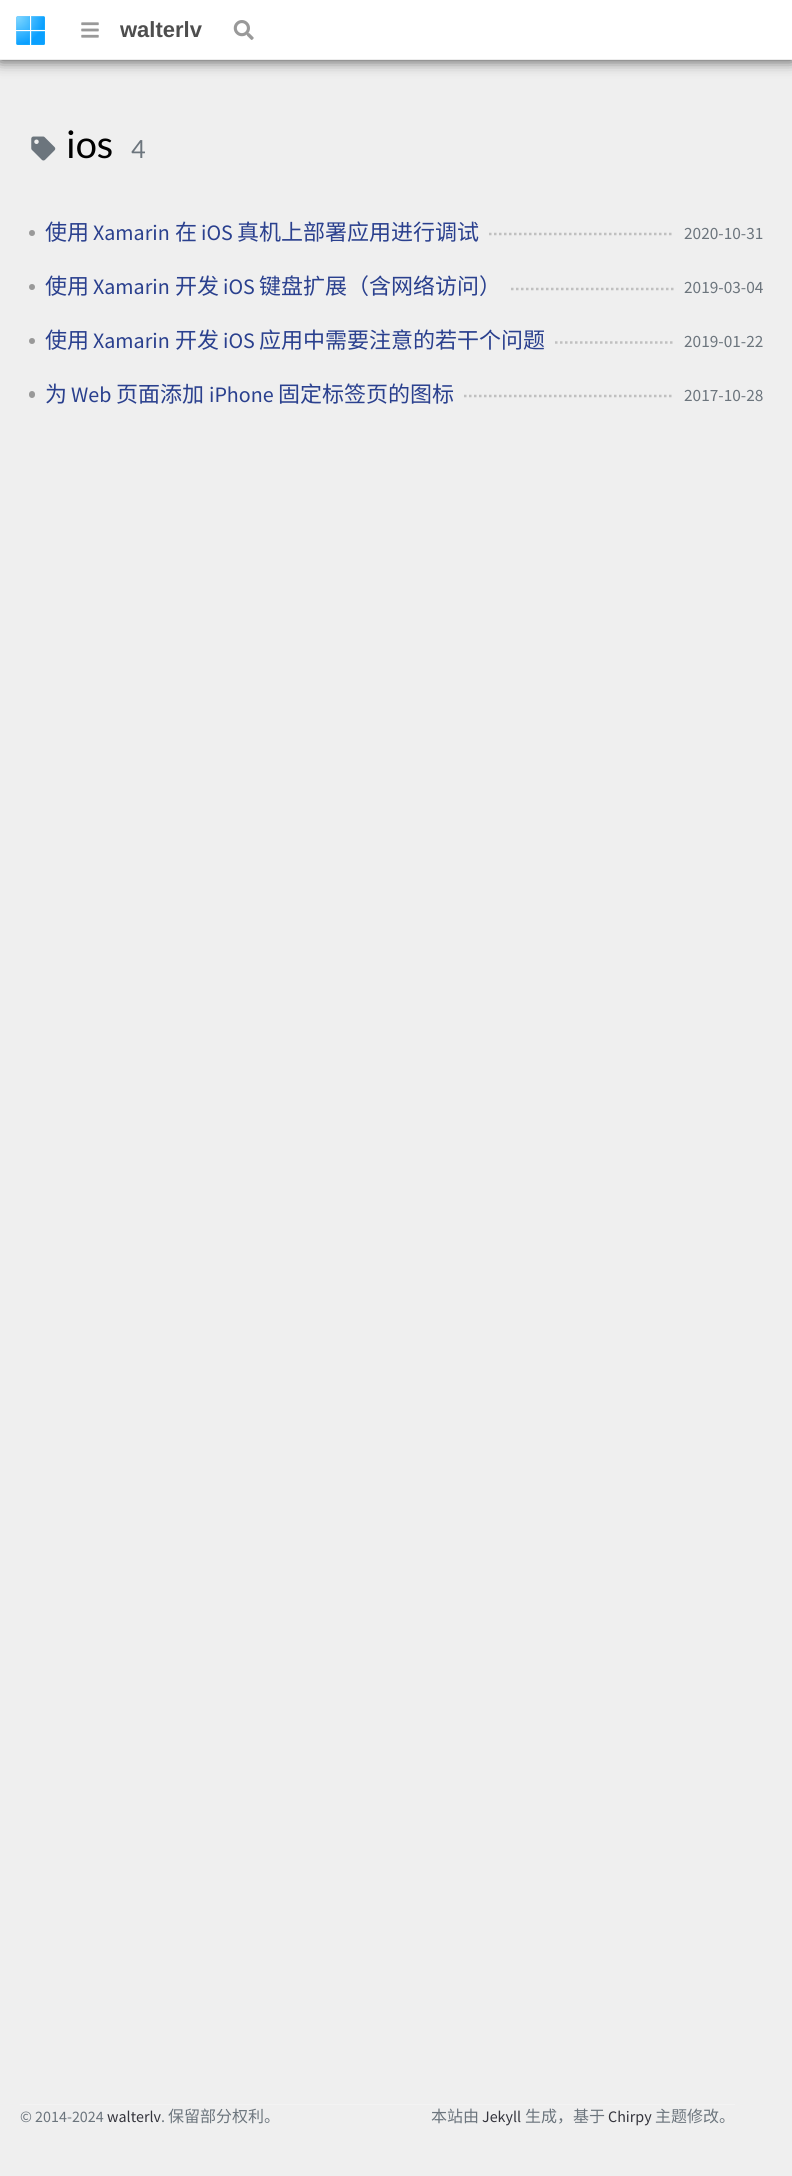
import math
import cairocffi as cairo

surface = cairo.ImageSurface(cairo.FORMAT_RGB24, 792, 2176)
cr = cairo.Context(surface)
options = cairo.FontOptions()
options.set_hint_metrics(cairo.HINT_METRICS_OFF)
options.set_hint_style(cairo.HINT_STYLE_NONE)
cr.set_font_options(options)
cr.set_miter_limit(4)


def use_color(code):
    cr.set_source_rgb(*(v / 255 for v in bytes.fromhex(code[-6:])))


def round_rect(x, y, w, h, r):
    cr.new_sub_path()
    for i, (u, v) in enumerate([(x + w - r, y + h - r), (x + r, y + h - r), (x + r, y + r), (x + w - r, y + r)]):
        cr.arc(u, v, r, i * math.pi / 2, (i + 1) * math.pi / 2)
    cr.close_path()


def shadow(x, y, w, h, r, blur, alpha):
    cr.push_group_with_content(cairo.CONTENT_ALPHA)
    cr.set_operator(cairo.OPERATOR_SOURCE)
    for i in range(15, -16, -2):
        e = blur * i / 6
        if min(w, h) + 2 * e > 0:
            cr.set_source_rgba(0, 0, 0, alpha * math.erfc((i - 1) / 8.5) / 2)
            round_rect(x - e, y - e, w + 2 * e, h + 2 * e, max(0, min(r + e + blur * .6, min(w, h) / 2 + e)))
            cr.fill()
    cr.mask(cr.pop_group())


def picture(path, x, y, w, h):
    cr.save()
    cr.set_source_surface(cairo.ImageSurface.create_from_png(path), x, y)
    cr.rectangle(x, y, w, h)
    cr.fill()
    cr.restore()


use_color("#efefef")
cr.paint()
use_color("#000000")
shadow(0, 0, 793, 60, 0, 7.5, 0.75)
use_color("#ffffff")
cr.rectangle(0, 0, 792, 59)
cr.fill()
use_color("#ededed")
cr.rectangle(0, 59, 792, 1)
cr.fill()
picture("img1.png", 16, 16, 29, 29)
picture("img2.png", 81, 22, 18, 16)
cr.select_font_face("Liberation Sans", cairo.FONT_SLANT_NORMAL, cairo.FONT_WEIGHT_BOLD)
cr.set_font_size(22)
use_color("#4e4e4e")
cr.move_to(120, 37)
cr.show_text("walterlv")
picture("img3.png", 233, 20, 21, 20)
picture("img4.png", 31, 136, 25, 25)
cr.select_font_face("Lato")
cr.set_font_size(38)
use_color("#000000")
cr.move_to(66, 158)
cr.show_text("ios")
cr.set_font_size(25)
use_color("#6c757d")
cr.move_to(131, 158)
cr.show_text("4")
use_color("#999999")
cr.new_path()
cr.arc(32, 233, 3, 0, 2 * math.pi)
cr.fill()
cr.select_font_face("Noto Sans CJK SC")
cr.set_font_size(22)
use_color("#2a408e")
cr.move_to(45, 240)
cr.show_text("使用")
cr.select_font_face("Source Sans Pro")
cr.move_to(93, 240)
cr.show_text("Xamarin")
cr.select_font_face("Noto Sans CJK SC")
cr.move_to(175, 240)
cr.show_text("在")
cr.select_font_face("Source Sans Pro")
cr.move_to(201, 240)
cr.show_text("iOS")
cr.select_font_face("Noto Sans CJK SC")
cr.move_to(237, 240)
cr.show_text("真机上部署应用进行调试")
cr.new_path()
cr.move_to(489, 234)
cr.line_to(674, 234)
use_color("#c0c0c0")
cr.set_line_width(2.5)
cr.set_dash([2.5, 2.5])
cr.stroke()
cr.select_font_face("Source Sans Pro")
cr.set_font_size(17.25)
use_color("#6c757d")
cr.move_to(684, 239)
cr.show_text("2020-10-31")
use_color("#999999")
cr.new_path()
cr.arc(32, 287, 3, 0, 2 * math.pi)
cr.fill()
cr.select_font_face("Noto Sans CJK SC")
cr.set_font_size(22)
use_color("#2a408e")
cr.move_to(45, 294)
cr.show_text("使用")
cr.select_font_face("Source Sans Pro")
cr.move_to(93, 294)
cr.show_text("Xamarin")
cr.select_font_face("Noto Sans CJK SC")
cr.move_to(175, 294)
cr.show_text("开发")
cr.select_font_face("Source Sans Pro")
cr.move_to(223, 294)
cr.show_text("iOS")
cr.select_font_face("Noto Sans CJK SC")
cr.move_to(259, 294)
cr.show_text("键盘扩展（含网络访问）")
cr.new_path()
cr.move_to(511, 289)
cr.line_to(674, 289)
use_color("#c0c0c0")
cr.stroke()
cr.select_font_face("Source Sans Pro")
cr.set_font_size(17.25)
use_color("#6c757d")
cr.move_to(684, 293)
cr.show_text("2019-03-04")
use_color("#999999")
cr.new_path()
cr.arc(32, 341, 3, 0, 2 * math.pi)
cr.fill()
cr.select_font_face("Noto Sans CJK SC")
cr.set_font_size(22)
use_color("#2a408e")
cr.move_to(45, 348)
cr.show_text("使用")
cr.select_font_face("Source Sans Pro")
cr.move_to(93, 348)
cr.show_text("Xamarin")
cr.select_font_face("Noto Sans CJK SC")
cr.move_to(175, 348)
cr.show_text("开发")
cr.select_font_face("Source Sans Pro")
cr.move_to(223, 348)
cr.show_text("iOS")
cr.select_font_face("Noto Sans CJK SC")
cr.move_to(259, 348)
cr.show_text("应用中需要注意的若干个问题")
cr.new_path()
cr.move_to(555, 342.5)
cr.line_to(674, 342.5)
use_color("#c0c0c0")
cr.stroke()
cr.select_font_face("Source Sans Pro")
cr.set_font_size(17.25)
use_color("#6c757d")
cr.move_to(684, 347)
cr.show_text("2019-01-22")
use_color("#999999")
round_rect(29, 391, 6, 7, 3)
cr.fill()
cr.select_font_face("Noto Sans CJK SC")
cr.set_font_size(22)
use_color("#2a408e")
cr.move_to(45, 402)
cr.show_text("为")
cr.select_font_face("Source Sans Pro")
cr.move_to(71, 402)
cr.show_text("Web")
cr.select_font_face("Noto Sans CJK SC")
cr.move_to(116, 402)
cr.show_text("页面添加")
cr.select_font_face("Source Sans Pro")
cr.move_to(209, 402)
cr.show_text("iPhone")
cr.select_font_face("Noto Sans CJK SC")
cr.move_to(278, 402)
cr.show_text("固定标签页的图标")
cr.new_path()
cr.move_to(464, 396)
cr.line_to(674, 396)
use_color("#c0c0c0")
cr.stroke()
cr.select_font_face("Source Sans Pro")
cr.set_font_size(17.25)
use_color("#6c757d")
cr.move_to(684, 401)
cr.show_text("2017-10-28")
use_color("#f3f3f3")
cr.rectangle(20, 2104, 715, 1)
cr.fill()
cr.set_font_size(16)
use_color("#6c757d")
cr.move_to(20, 2122)
cr.show_text("© 2014-2024")
use_color("#34343c")
cr.move_to(107, 2122)
cr.show_text("walterlv")
use_color("#6c757d")
cr.move_to(161, 2122)
cr.show_text(".")
cr.select_font_face("Noto Sans CJK SC")
cr.move_to(168, 2122)
cr.show_text("保留部分权利。")
cr.move_to(431, 2122)
cr.show_text("本站由")
cr.select_font_face("Source Sans Pro")
use_color("#34343c")
cr.move_to(482, 2122)
cr.show_text("Jekyll")
cr.select_font_face("Noto Sans CJK SC")
use_color("#6c757d")
cr.move_to(525, 2122)
cr.show_text("生成，基于")
cr.select_font_face("Source Sans Pro")
use_color("#34343c")
cr.move_to(608, 2122)
cr.show_text("Chirpy")
cr.select_font_face("Noto Sans CJK SC")
use_color("#6c757d")
cr.move_to(655, 2122)
cr.show_text("主题修改。")
surface.write_to_png("result.png")
